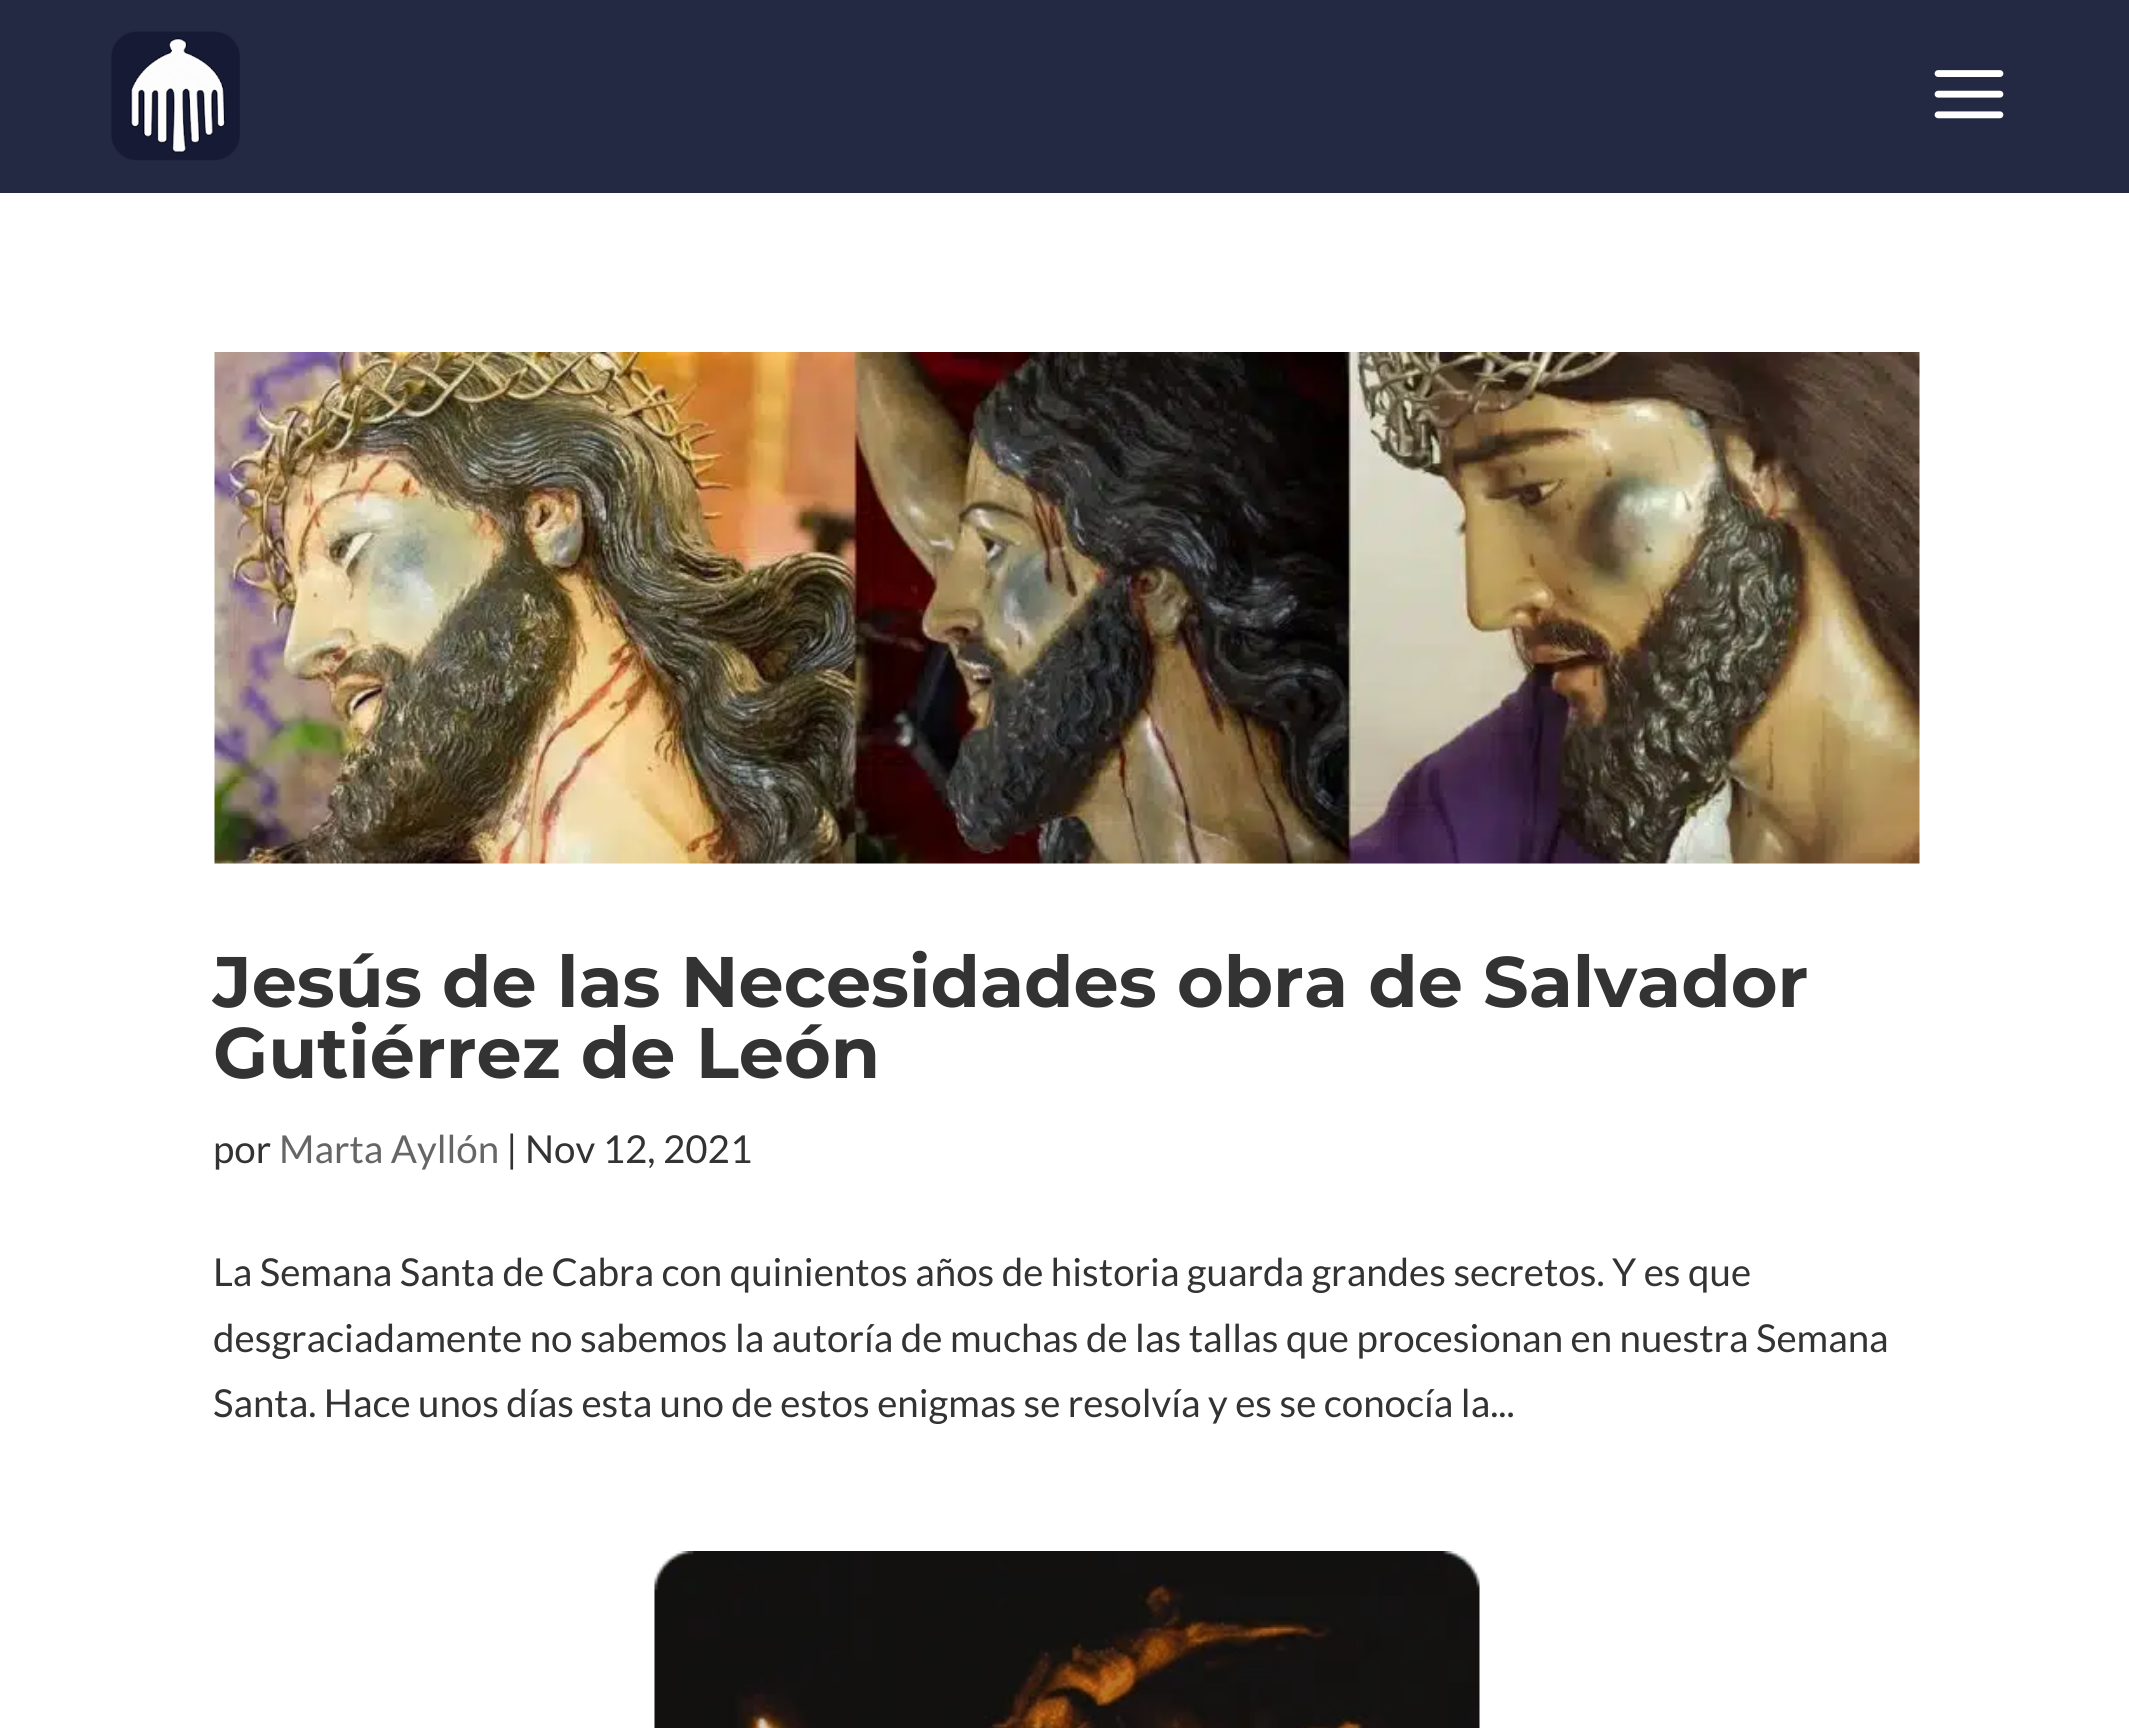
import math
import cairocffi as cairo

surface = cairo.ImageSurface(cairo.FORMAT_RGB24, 2129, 1728)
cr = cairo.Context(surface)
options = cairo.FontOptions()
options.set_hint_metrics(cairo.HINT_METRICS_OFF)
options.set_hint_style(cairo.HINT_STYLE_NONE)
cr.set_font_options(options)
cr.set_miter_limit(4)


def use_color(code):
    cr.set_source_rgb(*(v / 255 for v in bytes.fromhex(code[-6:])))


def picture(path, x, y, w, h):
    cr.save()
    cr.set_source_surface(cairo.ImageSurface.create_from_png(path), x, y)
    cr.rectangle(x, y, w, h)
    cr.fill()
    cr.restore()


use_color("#242943")
cr.paint()
picture("img1.png", 111, 31, 129, 130)
picture("img2.png", 1934, 70, 70, 49)
use_color("#ffffff")
cr.rectangle(0, 193, 2129, 1535)
cr.fill()
picture("img3.png", 214, 352, 1706, 512)
cr.select_font_face("Montserrat", cairo.FONT_SLANT_NORMAL, cairo.FONT_WEIGHT_BOLD)
cr.set_font_size(71.5)
use_color("#333333")
cr.move_to(213, 1007)
cr.show_text("Jesús de las Necesidades obra de Salvador")
cr.move_to(213, 1078)
cr.show_text("Gutiérrez de León")
cr.select_font_face("Lato")
cr.set_font_size(38.5)
cr.move_to(213, 1163)
cr.show_text("por")
use_color("#666666")
cr.move_to(279, 1163)
cr.show_text("Marta Ayllón")
use_color("#333333")
cr.move_to(506, 1163)
cr.show_text("| Nov 12, 2021")
cr.move_to(213, 1286)
cr.show_text("La Semana Santa de Cabra con quinientos años de historia guarda grandes secretos. Y es que")
cr.move_to(213, 1352)
cr.show_text("desgraciadamente no sabemos la autoría de muchas de las tallas que procesionan en nuestra Semana")
cr.move_to(213, 1417)
cr.show_text("Santa. Hace unos días esta uno de estos enigmas se resolvía y es se conocía la...")
picture("img4.png", 654, 1551, 826, 177)
surface.write_to_png("result.png")
